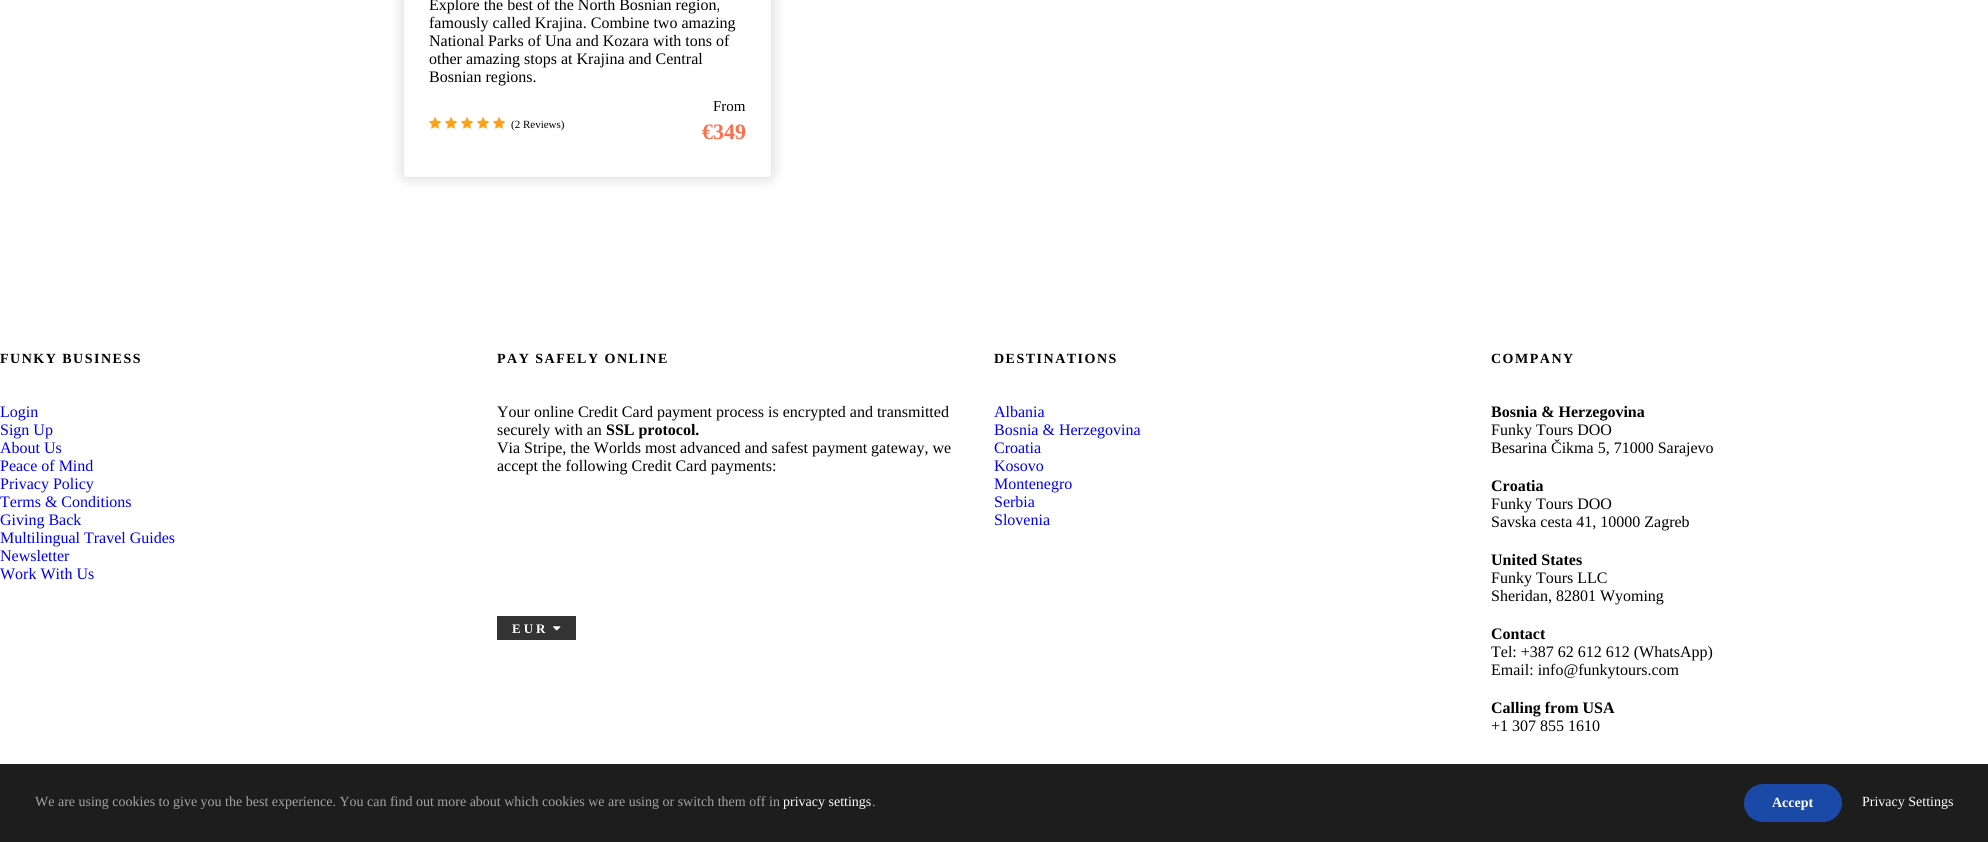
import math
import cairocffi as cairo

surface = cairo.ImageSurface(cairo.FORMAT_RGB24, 1988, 842)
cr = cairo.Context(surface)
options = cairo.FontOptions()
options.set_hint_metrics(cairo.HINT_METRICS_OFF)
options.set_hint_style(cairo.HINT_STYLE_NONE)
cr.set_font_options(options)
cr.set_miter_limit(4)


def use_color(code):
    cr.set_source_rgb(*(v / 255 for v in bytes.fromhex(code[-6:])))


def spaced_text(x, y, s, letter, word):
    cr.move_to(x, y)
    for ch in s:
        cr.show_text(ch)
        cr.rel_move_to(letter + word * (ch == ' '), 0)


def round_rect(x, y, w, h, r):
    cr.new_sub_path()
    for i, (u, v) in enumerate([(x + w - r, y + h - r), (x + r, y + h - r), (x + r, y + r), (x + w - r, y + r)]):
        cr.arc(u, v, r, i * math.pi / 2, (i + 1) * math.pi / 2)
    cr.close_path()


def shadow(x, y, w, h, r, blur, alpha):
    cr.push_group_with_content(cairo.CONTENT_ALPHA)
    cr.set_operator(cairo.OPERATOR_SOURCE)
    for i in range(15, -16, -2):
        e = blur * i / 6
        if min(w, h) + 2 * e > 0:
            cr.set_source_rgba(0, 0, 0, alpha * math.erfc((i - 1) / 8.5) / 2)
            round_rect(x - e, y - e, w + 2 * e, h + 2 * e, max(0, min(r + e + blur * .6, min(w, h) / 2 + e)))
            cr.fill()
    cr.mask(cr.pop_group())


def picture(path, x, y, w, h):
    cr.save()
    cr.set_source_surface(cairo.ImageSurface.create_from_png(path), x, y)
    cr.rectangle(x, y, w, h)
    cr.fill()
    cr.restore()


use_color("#ffffff")
cr.paint()
use_color("#0a0a0a")
shadow(404, -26, 367, 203, 3, 7.5, 0.2)
use_color("#ffffff")
cr.new_path()
cr.move_to(404, -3)
cr.line_to(771, -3)
cr.line_to(771, 174)
cr.curve_to(771, 175.5, 769.5, 177, 768, 177)
cr.line_to(407, 177)
cr.curve_to(405.5, 177, 404, 175.5, 404, 174)
cr.close_path()
cr.fill()
cr.select_font_face("Liberation Serif")
cr.set_font_size(16)
use_color("#000000")
cr.move_to(429, 10)
cr.show_text("Explore the best of the North Bosnian region,")
cr.move_to(429, 28)
cr.show_text("famously called Krajina. Combine two amazing")
cr.move_to(429, 46)
cr.show_text("National Parks of Una and Kozara with tons of")
cr.move_to(429, 64)
cr.show_text("other amazing stops at Krajina and Central")
cr.move_to(429, 82)
cr.show_text("Bosnian regions.")
picture("img1.png", 429, 117, 12, 12)
picture("img1.png", 445, 117, 12, 12)
picture("img1.png", 461, 117, 12, 12)
picture("img1.png", 477, 117, 12, 12)
picture("img1.png", 493, 117, 12, 12)
cr.set_font_size(11)
cr.move_to(511, 128)
cr.show_text("(2 Reviews)")
cr.set_font_size(15)
cr.move_to(713, 111)
cr.show_text("From")
cr.select_font_face("Liberation Serif", cairo.FONT_SLANT_NORMAL, cairo.FONT_WEIGHT_BOLD)
cr.set_font_size(22)
use_color("#f97150")
cr.move_to(702, 139)
cr.show_text("€349")
cr.set_font_size(14)
use_color("#000000")
spaced_text(0, 363, "FUNKY BUSINESS", 1.5, 0)
cr.select_font_face("Liberation Serif")
cr.set_font_size(16)
use_color("#0000ee")
cr.move_to(0, 417)
cr.show_text("Login")
cr.move_to(0, 435)
cr.show_text("Sign Up")
cr.move_to(0, 453)
cr.show_text("About Us")
cr.move_to(0, 471)
cr.show_text("Peace of Mind")
cr.move_to(0, 489)
cr.show_text("Privacy Policy")
cr.move_to(0, 507)
cr.show_text("Terms & Conditions")
cr.move_to(0, 525)
cr.show_text("Giving Back")
cr.move_to(0, 543)
cr.show_text("Multilingual Travel Guides")
cr.move_to(0, 561)
cr.show_text("Newsletter")
cr.move_to(0, 579)
cr.show_text("Work With Us")
cr.select_font_face("Liberation Serif", cairo.FONT_SLANT_NORMAL, cairo.FONT_WEIGHT_BOLD)
cr.set_font_size(14)
use_color("#000000")
spaced_text(497, 363, "PAY SAFELY ONLINE", 1.5, 0)
cr.select_font_face("Liberation Serif")
cr.set_font_size(16)
cr.move_to(497, 417)
cr.show_text("Your online Credit Card payment process is encrypted and transmitted")
cr.move_to(497, 435)
cr.show_text("securely with an")
cr.select_font_face("Liberation Serif", cairo.FONT_SLANT_NORMAL, cairo.FONT_WEIGHT_BOLD)
cr.move_to(606, 435)
cr.show_text("SSL protocol.")
cr.select_font_face("Liberation Serif")
cr.move_to(497, 453)
cr.show_text("Via Stripe, the Worlds most advanced and safest payment gateway, we")
cr.move_to(497, 471)
cr.show_text("accept the following Credit Card payments:")
use_color("#333333")
cr.rectangle(497, 616, 79, 24)
cr.fill()
cr.select_font_face("Liberation Serif", cairo.FONT_SLANT_NORMAL, cairo.FONT_WEIGHT_BOLD)
cr.set_font_size(13)
use_color("#ffffff")
spaced_text(512, 633, "EUR", 3, 0)
picture("img2.png", 553, 626, 8, 5)
cr.set_font_size(14)
use_color("#000000")
spaced_text(994, 363, "DESTINATIONS", 1.5, 0)
cr.select_font_face("Liberation Serif")
cr.set_font_size(16)
use_color("#0000ee")
cr.move_to(994, 417)
cr.show_text("Albania")
cr.move_to(994, 435)
cr.show_text("Bosnia & Herzegovina")
cr.move_to(994, 453)
cr.show_text("Croatia")
cr.move_to(994, 471)
cr.show_text("Kosovo")
cr.move_to(994, 489)
cr.show_text("Montenegro")
cr.move_to(994, 507)
cr.show_text("Serbia")
cr.move_to(994, 525)
cr.show_text("Slovenia")
cr.select_font_face("Liberation Serif", cairo.FONT_SLANT_NORMAL, cairo.FONT_WEIGHT_BOLD)
cr.set_font_size(14)
use_color("#000000")
spaced_text(1491, 363, "COMPANY", 1.5, 0)
cr.set_font_size(16)
cr.move_to(1491, 417)
cr.show_text("Bosnia & Herzegovina")
cr.select_font_face("Liberation Serif")
cr.move_to(1491, 435)
cr.show_text("Funky Tours DOO")
cr.move_to(1491, 453)
cr.show_text("Besarina Čikma 5, 71000 Sarajevo")
cr.select_font_face("Liberation Serif", cairo.FONT_SLANT_NORMAL, cairo.FONT_WEIGHT_BOLD)
cr.move_to(1491, 491)
cr.show_text("Croatia")
cr.select_font_face("Liberation Serif")
cr.move_to(1491, 509)
cr.show_text("Funky Tours DOO")
cr.move_to(1491, 527)
cr.show_text("Savska cesta 41, 10000 Zagreb")
cr.select_font_face("Liberation Serif", cairo.FONT_SLANT_NORMAL, cairo.FONT_WEIGHT_BOLD)
cr.move_to(1491, 565)
cr.show_text("United States")
cr.select_font_face("Liberation Serif")
cr.move_to(1491, 583)
cr.show_text("Funky Tours LLC")
cr.move_to(1491, 601)
cr.show_text("Sheridan, 82801 Wyoming")
cr.select_font_face("Liberation Serif", cairo.FONT_SLANT_NORMAL, cairo.FONT_WEIGHT_BOLD)
cr.move_to(1491, 639)
cr.show_text("Contact")
cr.select_font_face("Liberation Serif")
cr.move_to(1491, 657)
cr.show_text("Tel: +387 62 612 612 (WhatsApp)")
cr.move_to(1491, 675)
cr.show_text("Email: info@funkytours.com")
cr.select_font_face("Liberation Serif", cairo.FONT_SLANT_NORMAL, cairo.FONT_WEIGHT_BOLD)
cr.move_to(1491, 713)
cr.show_text("Calling from USA")
cr.select_font_face("Liberation Serif")
cr.move_to(1491, 731)
cr.show_text("+1 307 855 1610")
use_color("#1d1d1d")
cr.rectangle(0, 764, 1988, 78)
cr.fill()
cr.set_font_size(14)
use_color("#a3a3a3")
cr.move_to(35, 806)
cr.show_text("We are using cookies to give you the best experience. You can find out more about which cookies we are using or switch them off in")
use_color("#ffffff")
cr.move_to(783, 806)
cr.show_text("privacy settings")
use_color("#a3a3a3")
cr.move_to(872, 806)
cr.show_text(".")
use_color("#1a49a8")
round_rect(1744, 784, 98, 38, 19)
cr.fill()
cr.select_font_face("Liberation Serif", cairo.FONT_SLANT_NORMAL, cairo.FONT_WEIGHT_BOLD)
use_color("#ffffff")
cr.move_to(1772, 807)
cr.show_text("Accept")
cr.select_font_face("Liberation Serif")
cr.move_to(1862, 806)
cr.show_text("Privacy Settings")
surface.write_to_png("result.png")
